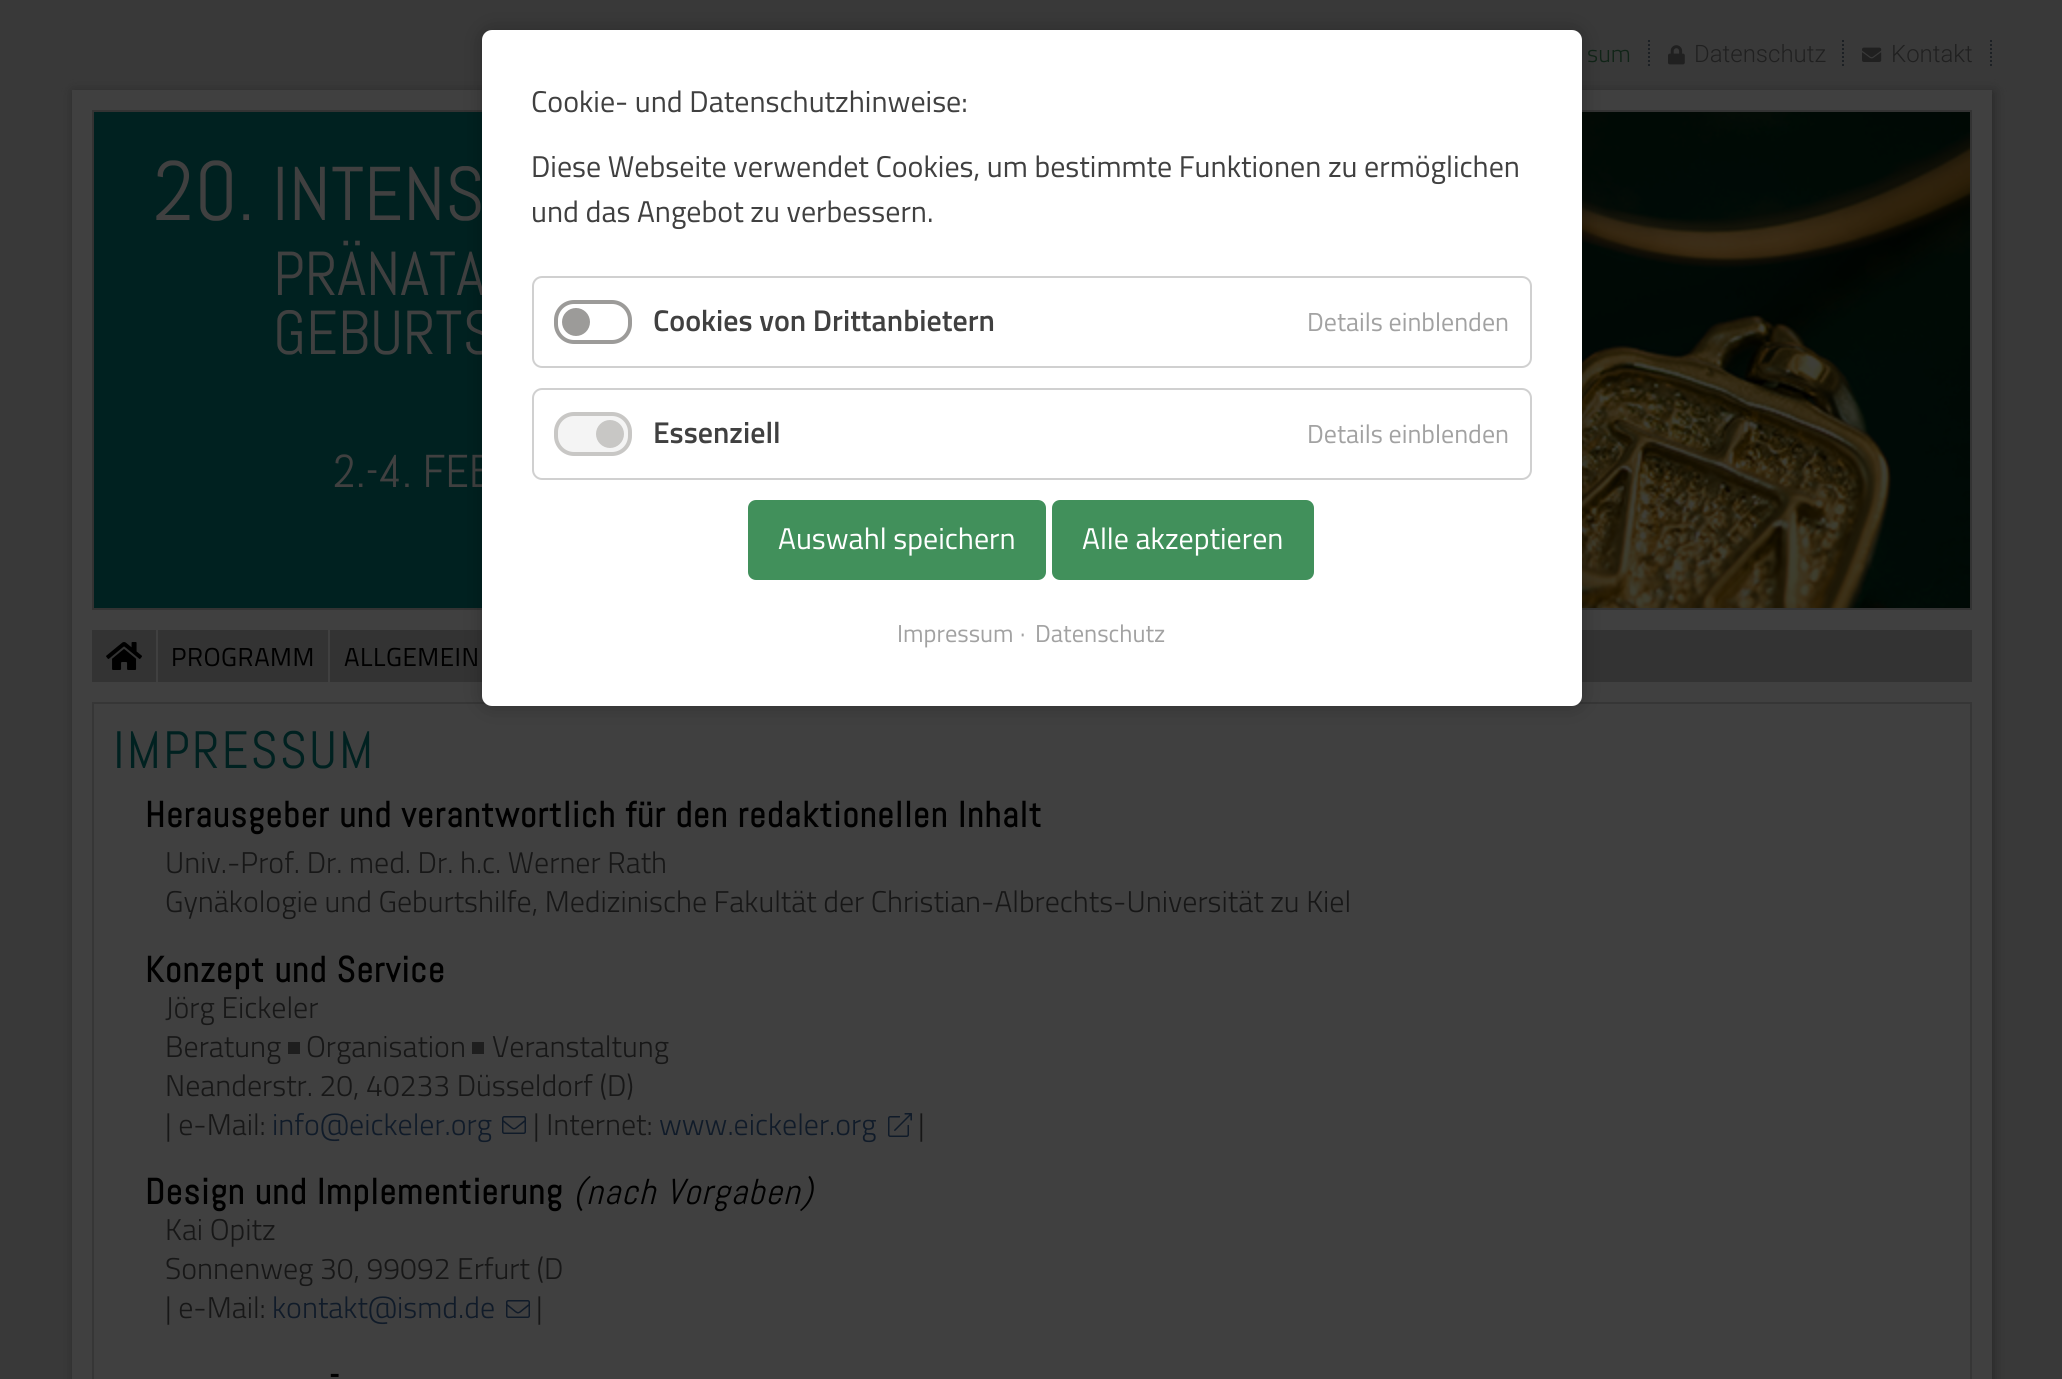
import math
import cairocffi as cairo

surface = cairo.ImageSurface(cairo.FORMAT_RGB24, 2062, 1379)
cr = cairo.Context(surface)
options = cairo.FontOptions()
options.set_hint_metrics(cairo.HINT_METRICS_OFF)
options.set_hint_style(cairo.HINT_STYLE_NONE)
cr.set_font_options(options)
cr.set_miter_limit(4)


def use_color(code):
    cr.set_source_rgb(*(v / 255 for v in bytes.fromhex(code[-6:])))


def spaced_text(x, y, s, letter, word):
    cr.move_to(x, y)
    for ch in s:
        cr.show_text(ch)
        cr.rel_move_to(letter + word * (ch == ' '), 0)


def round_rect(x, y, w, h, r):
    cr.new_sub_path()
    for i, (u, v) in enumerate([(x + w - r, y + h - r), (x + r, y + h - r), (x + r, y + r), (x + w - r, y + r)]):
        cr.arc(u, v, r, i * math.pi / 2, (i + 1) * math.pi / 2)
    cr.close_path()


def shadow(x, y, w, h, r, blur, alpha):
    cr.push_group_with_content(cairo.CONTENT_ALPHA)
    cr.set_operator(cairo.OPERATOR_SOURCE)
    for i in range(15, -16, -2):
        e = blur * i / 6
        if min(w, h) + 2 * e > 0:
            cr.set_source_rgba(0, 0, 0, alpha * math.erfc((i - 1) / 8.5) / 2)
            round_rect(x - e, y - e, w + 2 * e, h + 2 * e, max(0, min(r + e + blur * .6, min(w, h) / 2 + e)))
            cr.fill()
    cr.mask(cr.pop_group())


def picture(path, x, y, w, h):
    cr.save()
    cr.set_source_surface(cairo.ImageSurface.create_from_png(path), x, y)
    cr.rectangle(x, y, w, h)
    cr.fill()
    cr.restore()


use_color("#393939")
cr.paint()
cr.new_path()
cr.move_to(1991, 40)
cr.line_to(1991, 66)
use_color("#1c2024")
cr.set_dash([2, 2])
cr.stroke()
cr.select_font_face("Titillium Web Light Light")
cr.set_font_size(24)
use_color("#102417")
cr.move_to(1587, 62)
cr.show_text("sum")
cr.new_path()
cr.move_to(1649, 40)
cr.line_to(1649, 66)
use_color("#1c2024")
cr.stroke()
picture("img1.png", 1668, 45, 17, 20)
cr.select_font_face("Roboto Light")
use_color("#202020")
cr.move_to(1694, 62)
cr.show_text("Datenschutz")
cr.new_path()
cr.move_to(1843, 40)
cr.line_to(1843, 66)
use_color("#1c2024")
cr.stroke()
picture("img2.png", 1862, 47, 20, 15)
use_color("#202020")
cr.move_to(1891, 62)
cr.show_text("Kontakt")
use_color("#282828")
shadow(74, 92, 1920, 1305, 0, 6, 1)
use_color("#404040")
cr.rectangle(72, 90, 1920, 1289)
cr.fill()
use_color("#002120")
cr.rectangle(94, 112, 388, 496)
cr.fill()
cr.rectangle(93, 111, 1878, 498)
use_color("#333333")
cr.set_dash([])
cr.stroke()
cr.select_font_face("Abel")
cr.set_font_size(84)
use_color("#404040")
cr.move_to(153, 220)
cr.show_text("20")
cr.set_font_size(76)
cr.move_to(238, 220)
cr.show_text(". INTENS")
cr.set_font_size(62)
cr.move_to(273, 295)
cr.show_text("PRÄNATA")
cr.move_to(273, 354)
cr.show_text("GEBURTS")
cr.set_font_size(46)
cr.move_to(333, 487)
cr.show_text("2.-4. FEB")
picture("img3.png", 1582, 112, 388, 496)
use_color("#333333")
cr.rectangle(92, 630, 1880, 52)
cr.fill()
use_color("#404040")
cr.rectangle(156, 630, 2, 52)
cr.fill()
picture("img4.png", 106, 642, 36, 28)
cr.rectangle(328, 630, 2, 52)
cr.fill()
cr.select_font_face("Titillium Web")
cr.set_font_size(26)
use_color("#000000")
spaced_text(171, 666, "PROGRAMM", 0.5, 0)
spaced_text(344, 666, "ALLGEMEIN", 0.5, 0)
cr.rectangle(93, 703, 1878, 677)
use_color("#363636")
cr.stroke()
cr.select_font_face("Abel")
cr.set_font_size(52.5)
use_color("#002120")
spaced_text(113, 768, "IMPRESSUM", 2, 0)
cr.select_font_face("Abel", cairo.FONT_SLANT_NORMAL, cairo.FONT_WEIGHT_BOLD)
cr.set_font_size(36)
use_color("#000000")
spaced_text(145, 827, "Herausgeber und verantwortlich für den redaktionellen Inhalt", 1.2, 0)
cr.select_font_face("Titillium Web Light Light")
cr.set_font_size(30)
use_color("#171717")
cr.move_to(165, 873)
cr.show_text("Univ.-Prof. Dr. med. Dr. h.c. Werner Rath")
cr.move_to(165, 912)
cr.show_text("Gynäkologie und Geburtshilfe, Medizinische Fakultät der Christian-Albrechts-Universität zu Kiel")
cr.select_font_face("Abel", cairo.FONT_SLANT_NORMAL, cairo.FONT_WEIGHT_BOLD)
cr.set_font_size(36)
use_color("#000000")
spaced_text(145, 982, "Konzept und Service", 1.2, 0)
cr.select_font_face("Titillium Web Light Light")
cr.set_font_size(30)
use_color("#171717")
cr.move_to(165, 1018)
cr.show_text("Jörg Eickeler")
cr.move_to(165, 1057)
cr.show_text("Beratung")
use_color("#1e1e1e")
cr.rectangle(288, 1042, 12, 12)
cr.fill()
use_color("#171717")
cr.move_to(306, 1057)
cr.show_text("Organisation")
use_color("#1e1e1e")
cr.rectangle(472, 1042, 12, 12)
cr.fill()
use_color("#171717")
cr.move_to(492, 1057)
cr.show_text("Veranstaltung")
cr.move_to(165, 1096)
cr.show_text("Neanderstr. 20, 40233 Düsseldorf (D)")
cr.move_to(165, 1135)
cr.show_text("| e-Mail:")
use_color("#101b29")
cr.move_to(272, 1135)
cr.show_text("info@eickeler.org")
picture("img5.png", 502, 1116, 24, 18)
use_color("#171717")
cr.move_to(533, 1135)
cr.show_text("| Internet:")
use_color("#101b29")
cr.move_to(659, 1135)
cr.show_text("www.eickeler.org")
picture("img6.png", 888, 1113, 24, 24)
use_color("#171717")
cr.move_to(918, 1135)
cr.show_text("|")
cr.select_font_face("Abel", cairo.FONT_SLANT_NORMAL, cairo.FONT_WEIGHT_BOLD)
cr.set_font_size(36)
use_color("#000000")
spaced_text(145, 1204, "Design und Implementierung", 1.2, 0)
cr.select_font_face("Abel", cairo.FONT_SLANT_ITALIC)
spaced_text(573, 1204, "(nach Vorgaben)", 1.2, 0)
cr.select_font_face("Titillium Web Light Light")
cr.set_font_size(30)
use_color("#171717")
cr.move_to(165, 1240)
cr.show_text("Kai Opitz")
cr.move_to(165, 1279)
cr.show_text("Sonnenweg 30, 99092 Erfurt (D")
cr.move_to(165, 1318)
cr.show_text("| e-Mail:")
use_color("#101b29")
cr.move_to(272, 1318)
cr.show_text("kontakt@ismd.de")
picture("img5.png", 506, 1300, 24, 18)
use_color("#171717")
cr.move_to(536, 1318)
cr.show_text("|")
cr.select_font_face("Abel", cairo.FONT_SLANT_NORMAL, cairo.FONT_WEIGHT_BOLD)
cr.set_font_size(36)
use_color("#000000")
spaced_text(329, 1388, "-", 1.2, 0)
use_color("#000000")
shadow(482, 30, 1100, 676, 10, 10, 0.25)
use_color("#ffffff")
round_rect(482, 30, 1100, 676, 10)
cr.fill()
cr.select_font_face("Titillium Web")
cr.set_font_size(30)
use_color("#404040")
cr.move_to(531, 112)
cr.show_text("Cookie- und Datenschutzhinweise:")
cr.move_to(531, 177)
cr.show_text("Diese Webseite verwendet Cookies, um bestimmte Funktionen zu ermöglichen")
cr.move_to(531, 222)
cr.show_text("und das Angebot zu verbessern.")
round_rect(533, 277, 998, 90, 9)
use_color("#d0d0d0")
cr.stroke()
round_rect(556, 302, 74, 40, 18)
use_color("#9c9b99")
cr.set_line_width(4)
cr.stroke()
cr.arc(576, 322, 14, 0, 2 * math.pi)
cr.fill()
cr.select_font_face("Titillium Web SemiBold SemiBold")
use_color("#404040")
cr.move_to(653, 331)
cr.show_text("Cookies von Drittanbietern")
cr.select_font_face("Titillium Web")
cr.set_font_size(26)
use_color("#a2a2a2")
cr.move_to(1307, 331)
cr.show_text("Details einblenden")
round_rect(533, 389, 998, 90, 9)
use_color("#d0d0d0")
cr.set_line_width(2)
cr.stroke()
use_color("#f4f4f4")
round_rect(556, 414, 74, 40, 18)
cr.fill_preserve()
use_color("#c8c7c5")
cr.set_line_width(4)
cr.stroke()
cr.arc(610, 434, 14, 0, 2 * math.pi)
cr.fill()
cr.select_font_face("Titillium Web SemiBold SemiBold")
cr.set_font_size(30)
use_color("#404040")
cr.move_to(653, 443)
cr.show_text("Essenziell")
cr.select_font_face("Titillium Web")
cr.set_font_size(26)
use_color("#a2a2a2")
cr.move_to(1307, 443)
cr.show_text("Details einblenden")
use_color("#41905b")
round_rect(749, 501, 296, 78, 7)
cr.fill_preserve()
cr.set_line_width(2)
cr.stroke()
cr.set_font_size(30)
use_color("#ffffff")
cr.move_to(778, 549)
cr.show_text("Auswahl speichern")
use_color("#41905b")
round_rect(1053, 501, 260, 78, 7)
cr.fill_preserve()
cr.stroke()
use_color("#ffffff")
cr.move_to(1082, 549)
cr.show_text("Alle akzeptieren")
cr.set_font_size(24.5)
use_color("#a2a2a2")
cr.move_to(897, 642)
cr.show_text("Impressum")
cr.move_to(1020, 642)
cr.show_text("·")
cr.move_to(1035, 642)
cr.show_text("Datenschutz")
surface.write_to_png("result.png")
